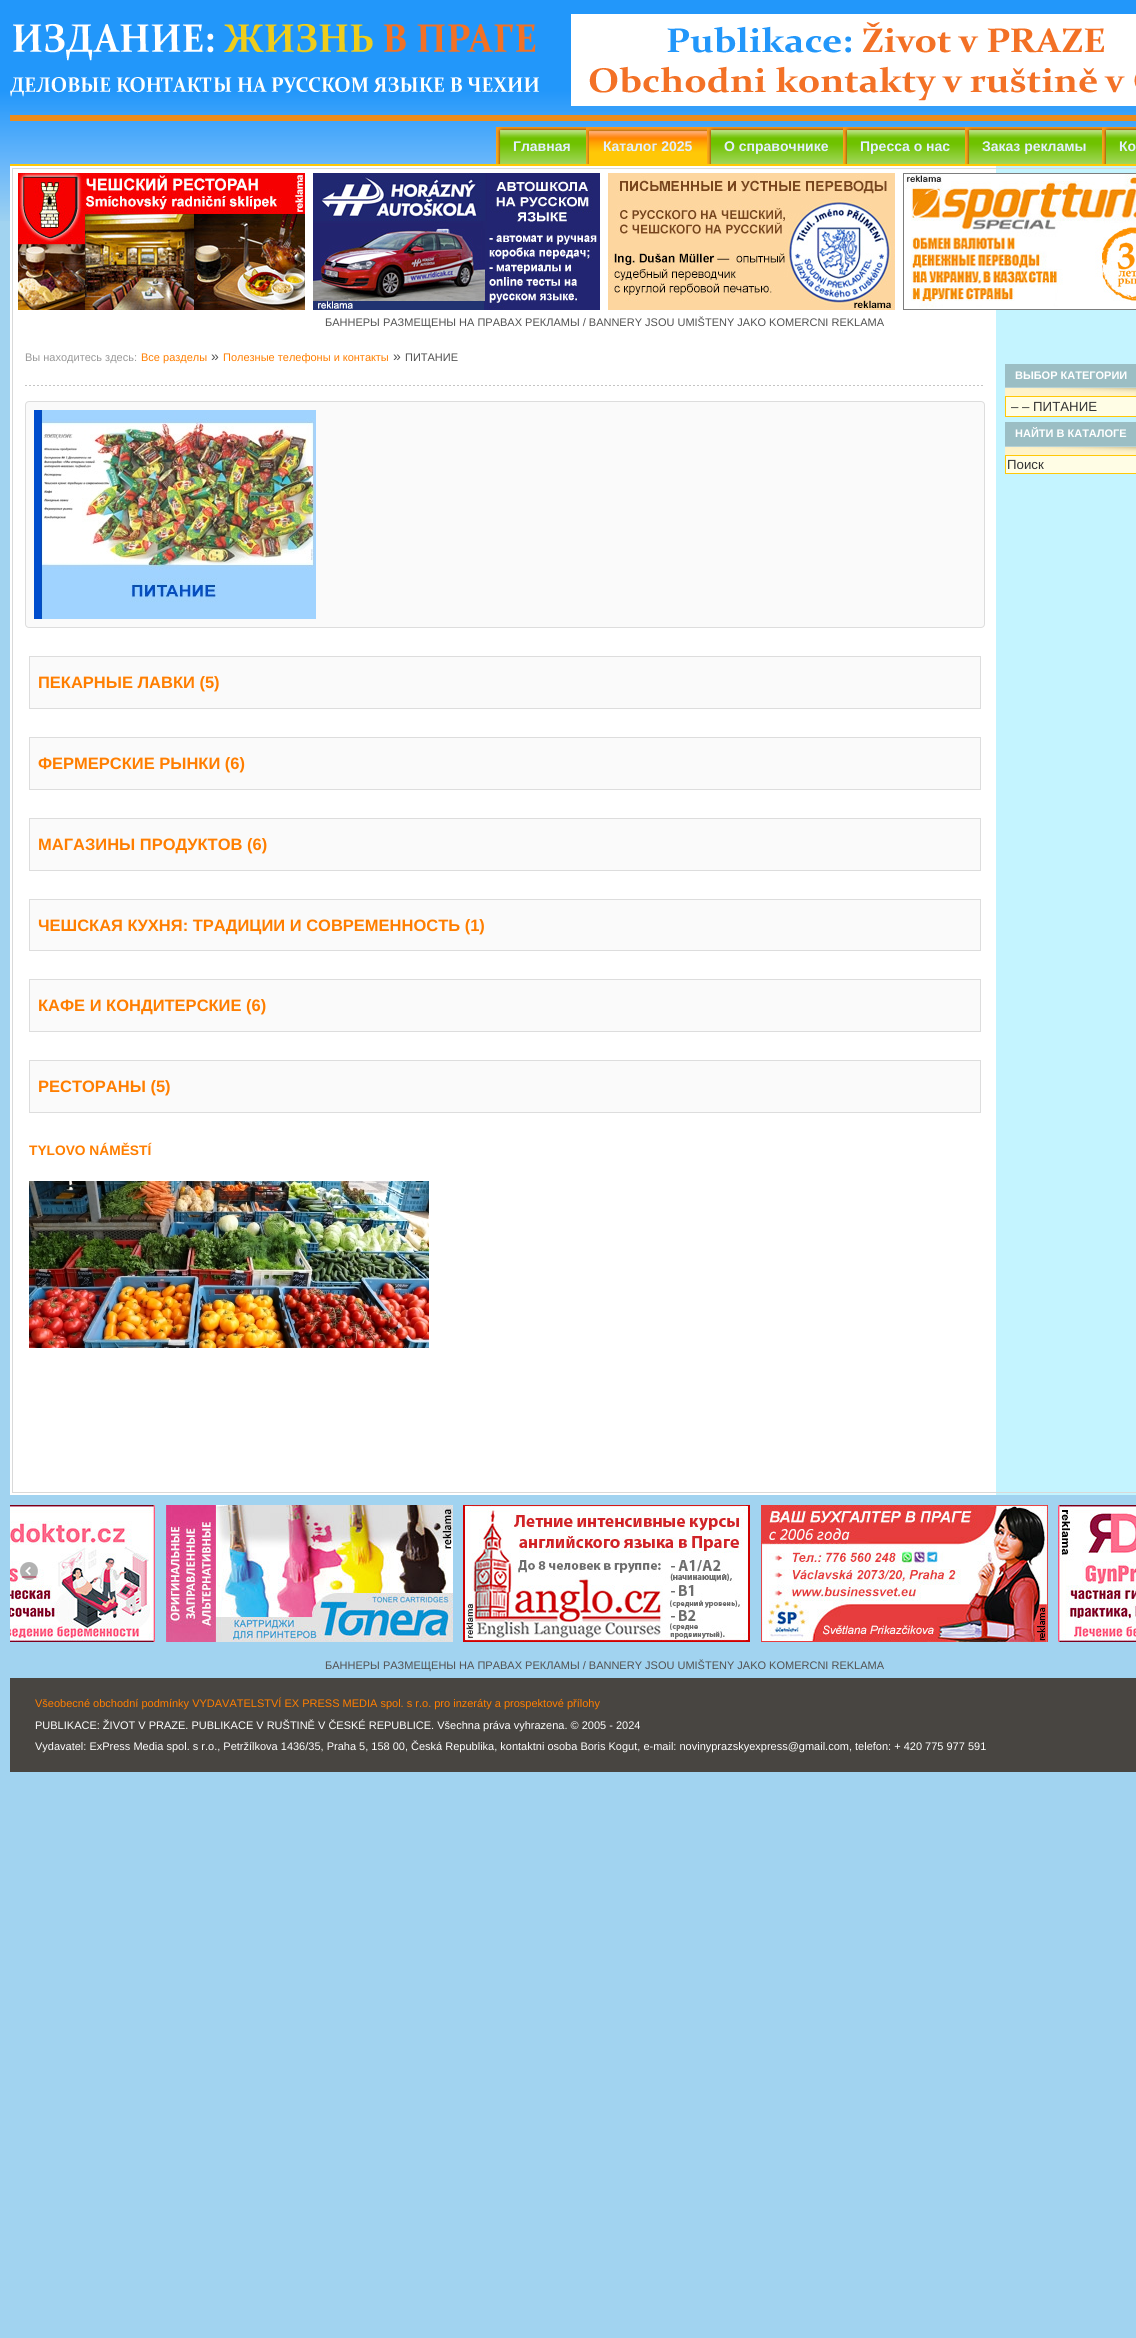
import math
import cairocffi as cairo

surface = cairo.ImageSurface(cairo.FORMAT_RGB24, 1136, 2338)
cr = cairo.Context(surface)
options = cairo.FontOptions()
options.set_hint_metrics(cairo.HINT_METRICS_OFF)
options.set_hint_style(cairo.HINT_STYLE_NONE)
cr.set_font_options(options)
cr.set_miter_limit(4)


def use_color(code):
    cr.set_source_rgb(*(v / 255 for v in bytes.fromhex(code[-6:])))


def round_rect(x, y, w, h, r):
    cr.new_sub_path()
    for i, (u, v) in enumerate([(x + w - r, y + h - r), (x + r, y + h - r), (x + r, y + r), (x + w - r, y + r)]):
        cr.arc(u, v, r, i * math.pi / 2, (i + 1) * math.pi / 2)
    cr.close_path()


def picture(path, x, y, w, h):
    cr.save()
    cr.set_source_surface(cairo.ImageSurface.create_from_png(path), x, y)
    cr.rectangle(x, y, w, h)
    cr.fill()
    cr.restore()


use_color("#a1d3f0")
cr.paint()
picture("img1.png", 0, 0, 1136, 221)
picture("img2.png", 10, 14, 1126, 107)
use_color("#ffc807")
cr.rectangle(10, 164, 1126, 2)
cr.fill()
picture("img3.png", 496, 127, 90, 37)
cr.select_font_face("Liberation Sans", cairo.FONT_SLANT_NORMAL, cairo.FONT_WEIGHT_BOLD)
cr.set_font_size(14)
use_color("#e3f0ff")
cr.move_to(513, 151)
cr.show_text("Главная")
picture("img4.png", 586, 127, 121, 37)
cr.move_to(603, 151)
cr.show_text("Каталог 2025")
picture("img5.png", 707, 127, 136, 37)
cr.move_to(724, 151)
cr.show_text("О справочнике")
picture("img6.png", 843, 127, 122, 37)
cr.move_to(860, 151)
cr.show_text("Пресса о нас")
picture("img7.png", 965, 127, 137, 37)
cr.move_to(982, 151)
cr.show_text("Заказ рекламы")
picture("img8.png", 1102, 127, 34, 37)
cr.move_to(1119, 151)
cr.show_text("Ко")
use_color("#ffffff")
cr.rectangle(10, 166, 986, 1329)
cr.fill()
use_color("#c4f4ff")
cr.rectangle(996, 166, 140, 1329)
cr.fill()
cr.rectangle(12.5, 168.5, 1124, 1324)
use_color("#d9d9d9")
cr.set_line_width(1)
cr.stroke()
picture("img9.png", 18, 173, 287, 137)
picture("img10.png", 313, 173, 287, 137)
picture("img11.png", 608, 173, 287, 137)
picture("img12.png", 903, 173, 233, 137)
cr.select_font_face("Liberation Sans")
cr.set_font_size(11)
use_color("#515151")
cr.move_to(325, 326)
cr.show_text("БАННЕРЫ РАЗМЕЩЕНЫ НА ПРАВАХ РЕКЛАМЫ / BANNERY JSOU UMIŠTENY JAKO KOMERCNI REKLAMA")
picture("img13.png", 25, 385, 958, 1)
use_color("#999999")
cr.move_to(25, 361)
cr.show_text("Вы находитесь здесь:")
use_color("#ff7e00")
cr.move_to(141, 361)
cr.show_text("Все разделы")
cr.set_font_size(14)
use_color("#515151")
cr.move_to(211, 361)
cr.show_text("»")
cr.set_font_size(11)
use_color("#ff7e00")
cr.move_to(223, 361)
cr.show_text("Полезные телефоны и контакты")
cr.set_font_size(14)
use_color("#515151")
cr.move_to(393, 361)
cr.show_text("»")
cr.set_font_size(11)
cr.move_to(405, 361)
cr.show_text("ПИТАНИЕ")
use_color("#fafafa")
round_rect(25.5, 401.5, 959, 226, 3.5)
cr.fill_preserve()
use_color("#dddddd")
cr.stroke()
picture("img14.png", 34, 410, 282, 209)
use_color("#fafafa")
cr.rectangle(29.5, 656.5, 951, 52)
cr.fill_preserve()
use_color("#dddddd")
cr.stroke()
cr.select_font_face("Liberation Sans", cairo.FONT_SLANT_NORMAL, cairo.FONT_WEIGHT_BOLD)
cr.set_font_size(16.5)
use_color("#ff7e00")
cr.move_to(38, 688)
cr.show_text("ПЕКАРНЫЕ ЛАВКИ (5)")
use_color("#fafafa")
cr.rectangle(29.5, 737.5, 951, 52)
cr.fill_preserve()
use_color("#dddddd")
cr.stroke()
use_color("#ff7e00")
cr.move_to(38, 769)
cr.show_text("ФЕРМЕРСКИЕ РЫНКИ (6)")
use_color("#fafafa")
cr.rectangle(29.5, 818.5, 951, 52)
cr.fill_preserve()
use_color("#dddddd")
cr.stroke()
use_color("#ff7e00")
cr.move_to(38, 850)
cr.show_text("МАГАЗИНЫ ПРОДУКТОВ (6)")
use_color("#fafafa")
cr.rectangle(29.5, 899.5, 951, 51)
cr.fill_preserve()
use_color("#dddddd")
cr.stroke()
use_color("#ff7e00")
cr.move_to(38, 931)
cr.show_text("ЧЕШСКАЯ КУХНЯ: ТРАДИЦИИ И СОВРЕМЕННОСТЬ (1)")
use_color("#fafafa")
cr.rectangle(29.5, 979.5, 951, 52)
cr.fill_preserve()
use_color("#dddddd")
cr.stroke()
use_color("#ff7e00")
cr.move_to(38, 1011)
cr.show_text("КАФЕ И КОНДИТЕРСКИЕ (6)")
use_color("#fafafa")
cr.rectangle(29.5, 1060.5, 951, 52)
cr.fill_preserve()
use_color("#dddddd")
cr.stroke()
use_color("#ff7e00")
cr.move_to(38, 1092)
cr.show_text("РЕСТОРАНЫ (5)")
cr.set_font_size(13.75)
cr.move_to(29, 1155)
cr.show_text("TYLOVO NÁMĚSTÍ")
picture("img15.png", 29, 1181, 400, 167)
use_color("#9bbec4")
cr.rectangle(1005, 364, 131, 23)
cr.fill()
picture("img16.png", 1005, 387, 131, 9)
cr.set_font_size(11)
use_color("#ffffff")
cr.move_to(1015, 379)
cr.show_text("ВЫБОР КАТЕГОРИИ")
use_color("#fffde5")
cr.rectangle(1005.5, 396.5, 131, 20)
cr.fill_preserve()
use_color("#ffc807")
cr.stroke()
cr.select_font_face("Liberation Sans")
cr.set_font_size(13.25)
use_color("#333333")
cr.move_to(1011, 411)
cr.show_text("– – ПИТАНИЕ")
use_color("#9bbec4")
cr.rectangle(1005, 422, 131, 24)
cr.fill()
picture("img16.png", 1005, 446, 131, 9)
cr.select_font_face("Liberation Sans", cairo.FONT_SLANT_NORMAL, cairo.FONT_WEIGHT_BOLD)
cr.set_font_size(11)
use_color("#ffffff")
cr.move_to(1015, 437)
cr.show_text("НАЙТИ В КАТАЛОГЕ")
use_color("#fffde5")
cr.rectangle(1005.5, 455.5, 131, 18)
cr.fill_preserve()
use_color("#ffc807")
cr.stroke()
cr.select_font_face("Liberation Sans")
cr.set_font_size(13.25)
use_color("#333333")
cr.move_to(1007, 469)
cr.show_text("Поиск")
picture("img17.png", 10, 1505, 145, 137)
picture("img18.png", 166, 1505, 287, 137)
picture("img19.png", 463, 1505, 287, 137)
picture("img20.png", 761, 1505, 287, 137)
picture("img21.png", 1058, 1505, 78, 137)
picture("img22.png", 20, 1562, 18, 18)
cr.set_font_size(11)
use_color("#515151")
cr.move_to(325, 1669)
cr.show_text("БАННЕРЫ РАЗМЕЩЕНЫ НА ПРАВАХ РЕКЛАМЫ / BANNERY JSOU UMIŠTENY JAKO KOMERCNI REKLAMA")
use_color("#484541")
cr.rectangle(10, 1678, 1126, 94)
cr.fill()
use_color("#ff7e00")
cr.move_to(35, 1707)
cr.show_text("Všeobecné obchodní podmínky VYDAVATELSTVÍ EX PRESS MEDIA spol. s r.o. pro inzeráty a prospektové přílohy")
use_color("#ffffff")
cr.move_to(35, 1729)
cr.show_text("PUBLIKACE: ŽIVOT V PRAZE. PUBLIKACE V RUŠTINĚ V ČESKÉ REPUBLICE. Všechna práva vyhrazena. © 2005 - 2024")
cr.move_to(35, 1750)
cr.show_text("Vydavatel: ExPress Media spol. s r.o., Petržílkova 1436/35, Praha 5, 158 00, Česká Republika, kontaktni osoba Boris Kogut, e-mail: novinyprazskyexpress@gmail.com, telefon: + 420 775 977 591")
surface.write_to_png("result.png")
